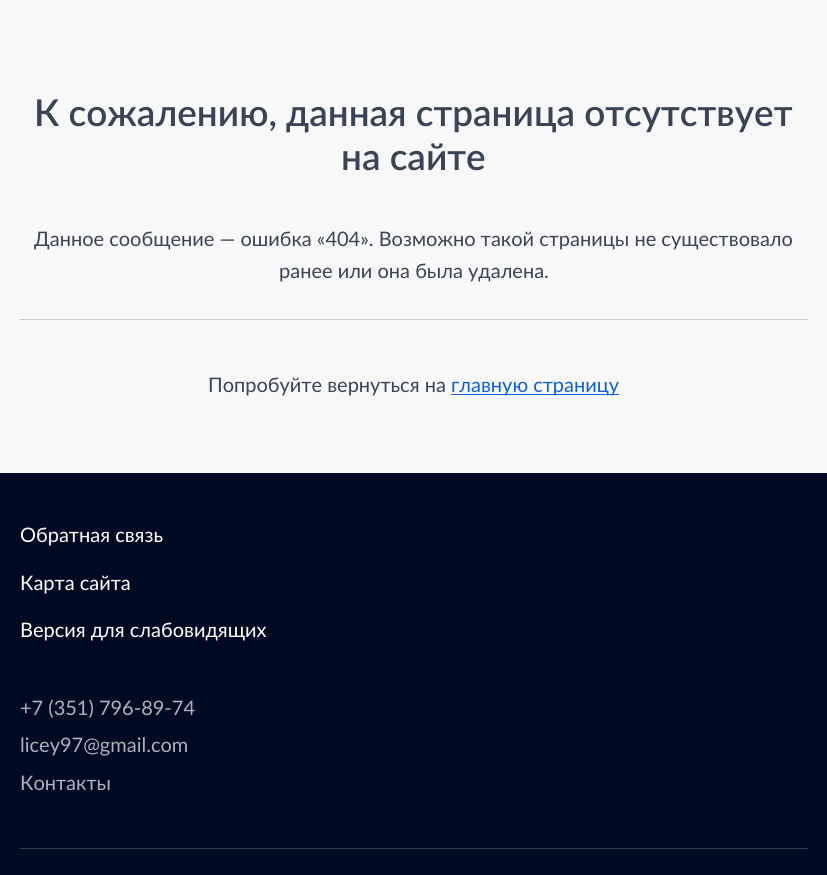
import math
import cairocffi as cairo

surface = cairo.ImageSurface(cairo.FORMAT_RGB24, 827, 875)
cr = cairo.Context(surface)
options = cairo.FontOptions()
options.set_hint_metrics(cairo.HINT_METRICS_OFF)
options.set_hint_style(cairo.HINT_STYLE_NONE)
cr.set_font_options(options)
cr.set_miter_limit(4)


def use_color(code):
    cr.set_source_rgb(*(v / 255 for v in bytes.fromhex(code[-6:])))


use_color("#f8f8f8")
cr.paint()
cr.select_font_face("Lato SemiBold")
cr.set_font_size(36.9)
use_color("#3b4357")
cr.move_to(34, 126)
cr.show_text("К сожалению, данная страница отсутствует")
cr.move_to(341, 170)
cr.show_text("на сайте")
cr.select_font_face("Lato")
cr.set_font_size(20)
cr.move_to(34, 246)
cr.show_text("Данное сообщение — ошибка «404». Возможно такой страницы не существовало")
cr.move_to(279, 278)
cr.show_text("ранее или она была удалена.")
use_color("#c9cbd0")
cr.rectangle(20, 319, 788, 1)
cr.fill()
use_color("#3b4357")
cr.move_to(208, 392)
cr.show_text("Попробуйте вернуться на")
use_color("#0f61d9")
cr.rectangle(451, 394, 168, 1)
cr.fill()
cr.move_to(451, 392)
cr.show_text("главную страницу")
use_color("#000a23")
cr.rectangle(0, 473, 827, 402)
cr.fill()
use_color("#333b4f")
cr.rectangle(20, 848, 788, 1)
cr.fill()
use_color("#ffffff")
cr.move_to(20, 542)
cr.show_text("Обратная связь")
cr.move_to(20, 590)
cr.show_text("Карта сайта")
cr.move_to(20, 637)
cr.show_text("Версия для слабовидящих")
use_color("#acb1ba")
cr.move_to(20, 715)
cr.show_text("+7 (351) 796-89-74")
cr.move_to(20, 752)
cr.show_text("licey97@gmail.com")
cr.move_to(20, 790)
cr.show_text("Контакты")
surface.write_to_png("result.png")
